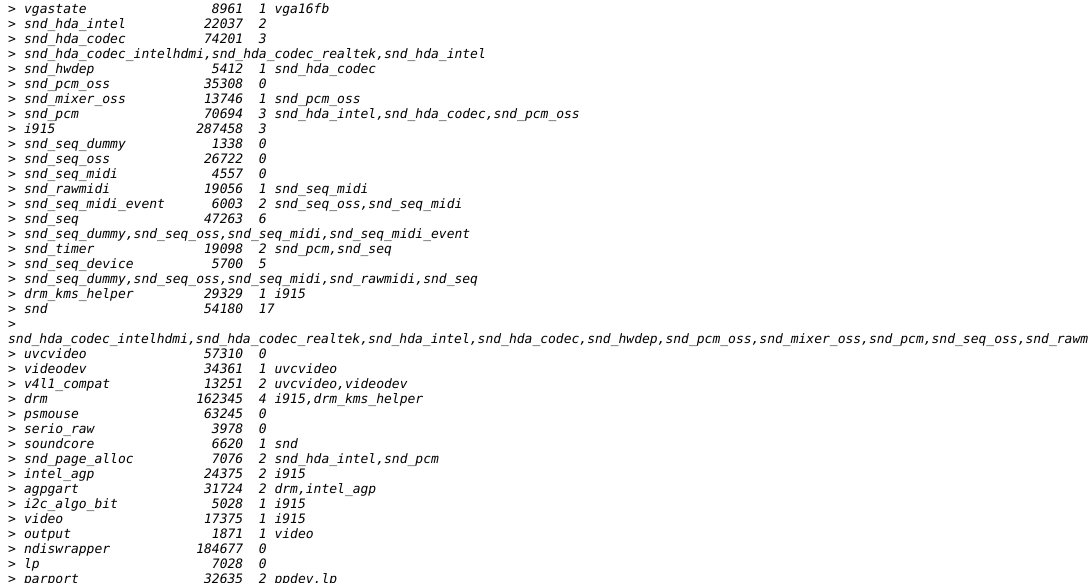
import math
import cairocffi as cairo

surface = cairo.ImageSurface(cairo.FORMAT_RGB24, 1091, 583)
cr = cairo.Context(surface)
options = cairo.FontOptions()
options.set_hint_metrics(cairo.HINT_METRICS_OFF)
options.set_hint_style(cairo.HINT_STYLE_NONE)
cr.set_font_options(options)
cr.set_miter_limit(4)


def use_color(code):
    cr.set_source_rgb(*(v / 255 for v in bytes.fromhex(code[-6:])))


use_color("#ffffff")
cr.paint()
cr.select_font_face("DejaVu Sans Mono")
cr.set_font_size(13)
use_color("#000000")
cr.move_to(8, 13)
cr.show_text(">")
cr.select_font_face("DejaVu Sans Mono", cairo.FONT_SLANT_ITALIC)
cr.move_to(24, 13)
cr.show_text("vgastate                8961  1 vga16fb")
cr.select_font_face("DejaVu Sans Mono")
cr.move_to(8, 28)
cr.show_text(">")
cr.select_font_face("DejaVu Sans Mono", cairo.FONT_SLANT_ITALIC)
cr.move_to(24, 28)
cr.show_text("snd_hda_intel          22037  2")
cr.select_font_face("DejaVu Sans Mono")
cr.move_to(8, 43)
cr.show_text(">")
cr.select_font_face("DejaVu Sans Mono", cairo.FONT_SLANT_ITALIC)
cr.move_to(24, 43)
cr.show_text("snd_hda_codec          74201  3")
cr.select_font_face("DejaVu Sans Mono")
cr.move_to(8, 58)
cr.show_text(">")
cr.select_font_face("DejaVu Sans Mono", cairo.FONT_SLANT_ITALIC)
cr.move_to(24, 58)
cr.show_text("snd_hda_codec_intelhdmi,snd_hda_codec_realtek,snd_hda_intel")
cr.select_font_face("DejaVu Sans Mono")
cr.move_to(8, 73)
cr.show_text(">")
cr.select_font_face("DejaVu Sans Mono", cairo.FONT_SLANT_ITALIC)
cr.move_to(24, 73)
cr.show_text("snd_hwdep               5412  1 snd_hda_codec")
cr.select_font_face("DejaVu Sans Mono")
cr.move_to(8, 88)
cr.show_text(">")
cr.select_font_face("DejaVu Sans Mono", cairo.FONT_SLANT_ITALIC)
cr.move_to(24, 88)
cr.show_text("snd_pcm_oss            35308  0")
cr.select_font_face("DejaVu Sans Mono")
cr.move_to(8, 103)
cr.show_text(">")
cr.select_font_face("DejaVu Sans Mono", cairo.FONT_SLANT_ITALIC)
cr.move_to(24, 103)
cr.show_text("snd_mixer_oss          13746  1 snd_pcm_oss")
cr.select_font_face("DejaVu Sans Mono")
cr.move_to(8, 118)
cr.show_text(">")
cr.select_font_face("DejaVu Sans Mono", cairo.FONT_SLANT_ITALIC)
cr.move_to(24, 118)
cr.show_text("snd_pcm                70694  3 snd_hda_intel,snd_hda_codec,snd_pcm_oss")
cr.select_font_face("DejaVu Sans Mono")
cr.move_to(8, 133)
cr.show_text(">")
cr.select_font_face("DejaVu Sans Mono", cairo.FONT_SLANT_ITALIC)
cr.move_to(24, 133)
cr.show_text("i915                  287458  3")
cr.select_font_face("DejaVu Sans Mono")
cr.move_to(8, 148)
cr.show_text(">")
cr.select_font_face("DejaVu Sans Mono", cairo.FONT_SLANT_ITALIC)
cr.move_to(24, 148)
cr.show_text("snd_seq_dummy           1338  0")
cr.select_font_face("DejaVu Sans Mono")
cr.move_to(8, 163)
cr.show_text(">")
cr.select_font_face("DejaVu Sans Mono", cairo.FONT_SLANT_ITALIC)
cr.move_to(24, 163)
cr.show_text("snd_seq_oss            26722  0")
cr.select_font_face("DejaVu Sans Mono")
cr.move_to(8, 178)
cr.show_text(">")
cr.select_font_face("DejaVu Sans Mono", cairo.FONT_SLANT_ITALIC)
cr.move_to(24, 178)
cr.show_text("snd_seq_midi            4557  0")
cr.select_font_face("DejaVu Sans Mono")
cr.move_to(8, 193)
cr.show_text(">")
cr.select_font_face("DejaVu Sans Mono", cairo.FONT_SLANT_ITALIC)
cr.move_to(24, 193)
cr.show_text("snd_rawmidi            19056  1 snd_seq_midi")
cr.select_font_face("DejaVu Sans Mono")
cr.move_to(8, 208)
cr.show_text(">")
cr.select_font_face("DejaVu Sans Mono", cairo.FONT_SLANT_ITALIC)
cr.move_to(24, 208)
cr.show_text("snd_seq_midi_event      6003  2 snd_seq_oss,snd_seq_midi")
cr.select_font_face("DejaVu Sans Mono")
cr.move_to(8, 223)
cr.show_text(">")
cr.select_font_face("DejaVu Sans Mono", cairo.FONT_SLANT_ITALIC)
cr.move_to(24, 223)
cr.show_text("snd_seq                47263  6")
cr.select_font_face("DejaVu Sans Mono")
cr.move_to(8, 238)
cr.show_text(">")
cr.select_font_face("DejaVu Sans Mono", cairo.FONT_SLANT_ITALIC)
cr.move_to(24, 238)
cr.show_text("snd_seq_dummy,snd_seq_oss,snd_seq_midi,snd_seq_midi_event")
cr.select_font_face("DejaVu Sans Mono")
cr.move_to(8, 253)
cr.show_text(">")
cr.select_font_face("DejaVu Sans Mono", cairo.FONT_SLANT_ITALIC)
cr.move_to(24, 253)
cr.show_text("snd_timer              19098  2 snd_pcm,snd_seq")
cr.select_font_face("DejaVu Sans Mono")
cr.move_to(8, 268)
cr.show_text(">")
cr.select_font_face("DejaVu Sans Mono", cairo.FONT_SLANT_ITALIC)
cr.move_to(24, 268)
cr.show_text("snd_seq_device          5700  5")
cr.select_font_face("DejaVu Sans Mono")
cr.move_to(8, 283)
cr.show_text(">")
cr.select_font_face("DejaVu Sans Mono", cairo.FONT_SLANT_ITALIC)
cr.move_to(24, 283)
cr.show_text("snd_seq_dummy,snd_seq_oss,snd_seq_midi,snd_rawmidi,snd_seq")
cr.select_font_face("DejaVu Sans Mono")
cr.move_to(8, 298)
cr.show_text(">")
cr.select_font_face("DejaVu Sans Mono", cairo.FONT_SLANT_ITALIC)
cr.move_to(24, 298)
cr.show_text("drm_kms_helper         29329  1 i915")
cr.select_font_face("DejaVu Sans Mono")
cr.move_to(8, 313)
cr.show_text(">")
cr.select_font_face("DejaVu Sans Mono", cairo.FONT_SLANT_ITALIC)
cr.move_to(24, 313)
cr.show_text("snd                    54180  17")
cr.select_font_face("DejaVu Sans Mono")
cr.move_to(8, 328)
cr.show_text(">")
cr.select_font_face("DejaVu Sans Mono", cairo.FONT_SLANT_ITALIC)
cr.move_to(8, 343)
cr.show_text("snd_hda_codec_intelhdmi,snd_hda_codec_realtek,snd_hda_intel,snd_hda_codec,snd_hwdep,snd_pcm_oss,snd_mixer_oss,snd_pcm,snd_seq_oss,snd_rawm")
cr.select_font_face("DejaVu Sans Mono")
cr.move_to(8, 358)
cr.show_text(">")
cr.select_font_face("DejaVu Sans Mono", cairo.FONT_SLANT_ITALIC)
cr.move_to(24, 358)
cr.show_text("uvcvideo               57310  0")
cr.select_font_face("DejaVu Sans Mono")
cr.move_to(8, 373)
cr.show_text(">")
cr.select_font_face("DejaVu Sans Mono", cairo.FONT_SLANT_ITALIC)
cr.move_to(24, 373)
cr.show_text("videodev               34361  1 uvcvideo")
cr.select_font_face("DejaVu Sans Mono")
cr.move_to(8, 388)
cr.show_text(">")
cr.select_font_face("DejaVu Sans Mono", cairo.FONT_SLANT_ITALIC)
cr.move_to(24, 388)
cr.show_text("v4l1_compat            13251  2 uvcvideo,videodev")
cr.select_font_face("DejaVu Sans Mono")
cr.move_to(8, 403)
cr.show_text(">")
cr.select_font_face("DejaVu Sans Mono", cairo.FONT_SLANT_ITALIC)
cr.move_to(24, 403)
cr.show_text("drm                   162345  4 i915,drm_kms_helper")
cr.select_font_face("DejaVu Sans Mono")
cr.move_to(8, 418)
cr.show_text(">")
cr.select_font_face("DejaVu Sans Mono", cairo.FONT_SLANT_ITALIC)
cr.move_to(24, 418)
cr.show_text("psmouse                63245  0")
cr.select_font_face("DejaVu Sans Mono")
cr.move_to(8, 433)
cr.show_text(">")
cr.select_font_face("DejaVu Sans Mono", cairo.FONT_SLANT_ITALIC)
cr.move_to(24, 433)
cr.show_text("serio_raw               3978  0")
cr.select_font_face("DejaVu Sans Mono")
cr.move_to(8, 448)
cr.show_text(">")
cr.select_font_face("DejaVu Sans Mono", cairo.FONT_SLANT_ITALIC)
cr.move_to(24, 448)
cr.show_text("soundcore               6620  1 snd")
cr.select_font_face("DejaVu Sans Mono")
cr.move_to(8, 463)
cr.show_text(">")
cr.select_font_face("DejaVu Sans Mono", cairo.FONT_SLANT_ITALIC)
cr.move_to(24, 463)
cr.show_text("snd_page_alloc          7076  2 snd_hda_intel,snd_pcm")
cr.select_font_face("DejaVu Sans Mono")
cr.move_to(8, 478)
cr.show_text(">")
cr.select_font_face("DejaVu Sans Mono", cairo.FONT_SLANT_ITALIC)
cr.move_to(24, 478)
cr.show_text("intel_agp              24375  2 i915")
cr.select_font_face("DejaVu Sans Mono")
cr.move_to(8, 493)
cr.show_text(">")
cr.select_font_face("DejaVu Sans Mono", cairo.FONT_SLANT_ITALIC)
cr.move_to(24, 493)
cr.show_text("agpgart                31724  2 drm,intel_agp")
cr.select_font_face("DejaVu Sans Mono")
cr.move_to(8, 508)
cr.show_text(">")
cr.select_font_face("DejaVu Sans Mono", cairo.FONT_SLANT_ITALIC)
cr.move_to(24, 508)
cr.show_text("i2c_algo_bit            5028  1 i915")
cr.select_font_face("DejaVu Sans Mono")
cr.move_to(8, 523)
cr.show_text(">")
cr.select_font_face("DejaVu Sans Mono", cairo.FONT_SLANT_ITALIC)
cr.move_to(24, 523)
cr.show_text("video                  17375  1 i915")
cr.select_font_face("DejaVu Sans Mono")
cr.move_to(8, 538)
cr.show_text(">")
cr.select_font_face("DejaVu Sans Mono", cairo.FONT_SLANT_ITALIC)
cr.move_to(24, 538)
cr.show_text("output                  1871  1 video")
cr.select_font_face("DejaVu Sans Mono")
cr.move_to(8, 553)
cr.show_text(">")
cr.select_font_face("DejaVu Sans Mono", cairo.FONT_SLANT_ITALIC)
cr.move_to(24, 553)
cr.show_text("ndiswrapper           184677  0")
cr.select_font_face("DejaVu Sans Mono")
cr.move_to(8, 568)
cr.show_text(">")
cr.select_font_face("DejaVu Sans Mono", cairo.FONT_SLANT_ITALIC)
cr.move_to(24, 568)
cr.show_text("lp                      7028  0")
cr.select_font_face("DejaVu Sans Mono")
cr.move_to(8, 583)
cr.show_text(">")
cr.select_font_face("DejaVu Sans Mono", cairo.FONT_SLANT_ITALIC)
cr.move_to(24, 583)
cr.show_text("parport                32635  2 ppdev,lp")
surface.write_to_png("result.png")
